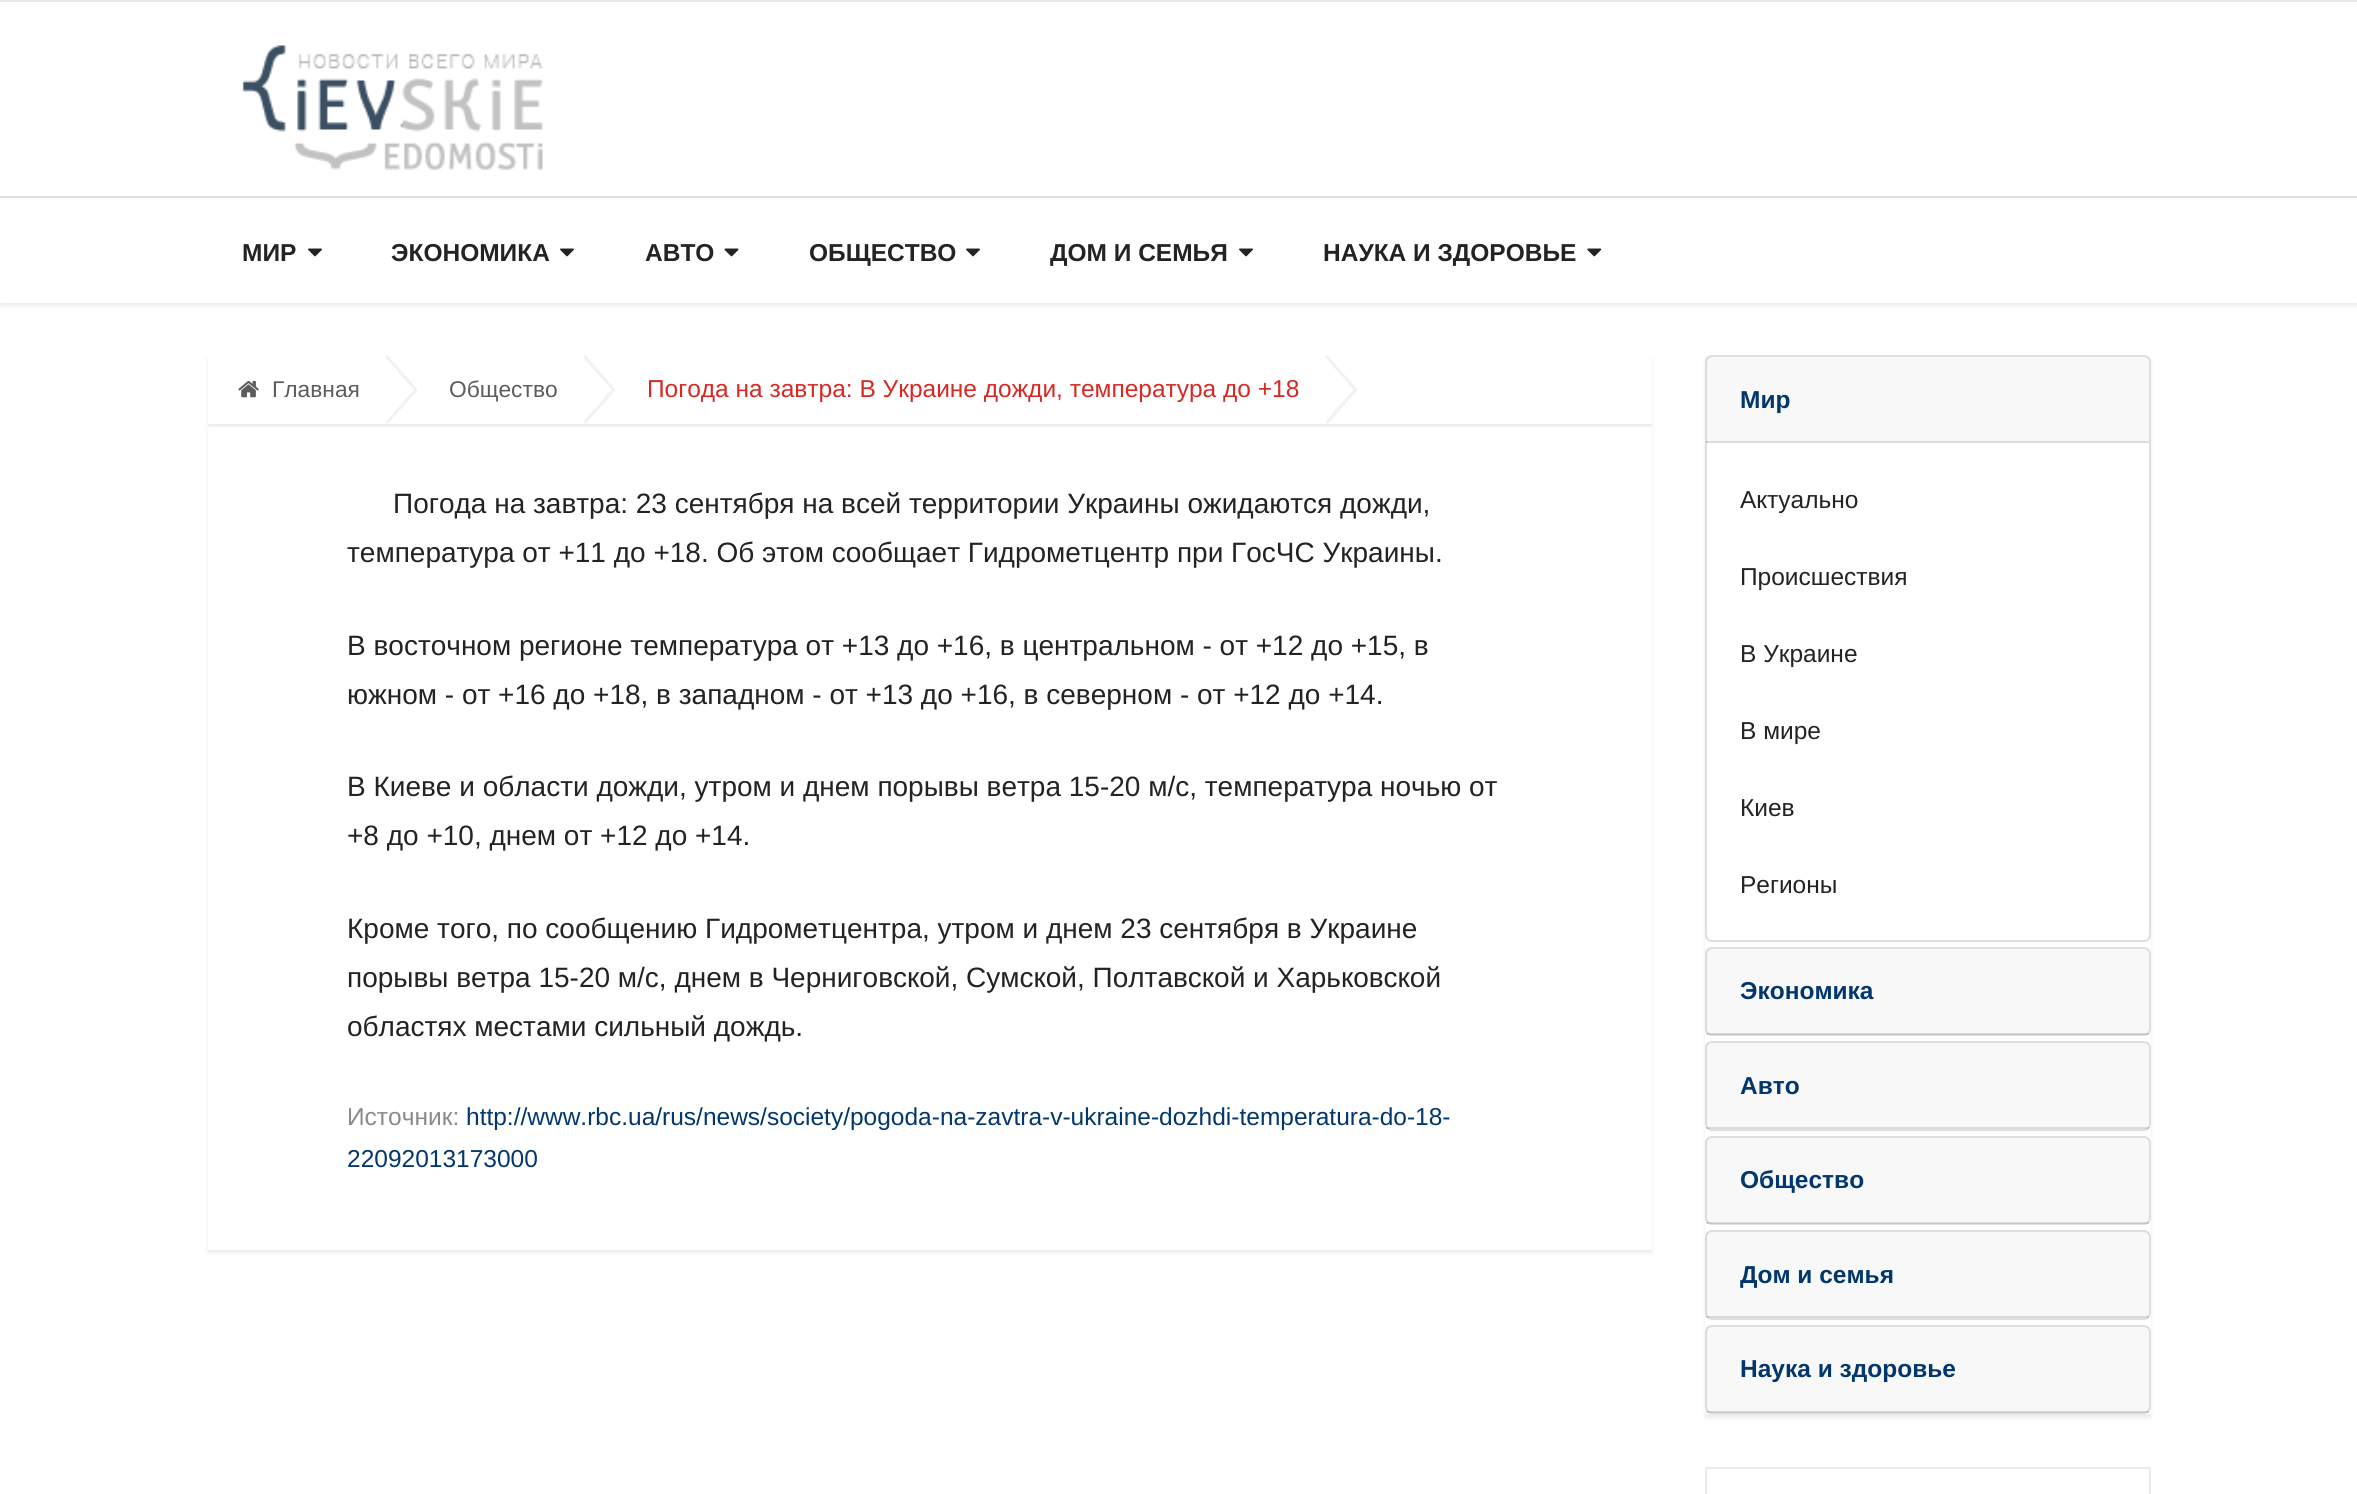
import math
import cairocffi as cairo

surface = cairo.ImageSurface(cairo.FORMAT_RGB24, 2357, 1494)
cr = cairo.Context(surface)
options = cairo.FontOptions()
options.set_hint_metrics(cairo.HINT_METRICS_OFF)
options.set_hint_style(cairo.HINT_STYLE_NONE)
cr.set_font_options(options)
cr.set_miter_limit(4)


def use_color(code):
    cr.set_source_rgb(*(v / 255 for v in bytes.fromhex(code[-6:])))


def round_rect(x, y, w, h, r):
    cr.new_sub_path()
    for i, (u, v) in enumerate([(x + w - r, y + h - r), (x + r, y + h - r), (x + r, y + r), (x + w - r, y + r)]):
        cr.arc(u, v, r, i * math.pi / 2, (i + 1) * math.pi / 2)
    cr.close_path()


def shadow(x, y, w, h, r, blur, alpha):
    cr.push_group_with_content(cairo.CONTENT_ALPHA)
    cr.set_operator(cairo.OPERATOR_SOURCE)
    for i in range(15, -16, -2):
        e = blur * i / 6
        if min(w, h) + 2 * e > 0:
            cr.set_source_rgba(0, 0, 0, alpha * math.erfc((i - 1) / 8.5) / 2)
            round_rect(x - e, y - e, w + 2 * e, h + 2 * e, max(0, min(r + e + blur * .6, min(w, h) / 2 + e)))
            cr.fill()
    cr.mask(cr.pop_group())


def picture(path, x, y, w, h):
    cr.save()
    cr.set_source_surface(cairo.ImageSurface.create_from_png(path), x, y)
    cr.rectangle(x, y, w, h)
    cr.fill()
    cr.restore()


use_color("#ffffff")
cr.paint()
use_color("#e9e9e9")
cr.rectangle(0, 0, 2357, 2)
cr.fill()
picture("img1.png", 242, 45, 301, 125)
use_color("#000000")
shadow(0, 200, 2357, 106, 0, 2, 0.08)
use_color("#ffffff")
cr.rectangle(0, 198, 2357, 105)
cr.fill()
use_color("#dddddd")
cr.rectangle(0, 196, 2357, 2)
cr.fill()
cr.select_font_face("Liberation Sans", cairo.FONT_SLANT_NORMAL, cairo.FONT_WEIGHT_BOLD)
cr.set_font_size(24.5)
use_color("#232323")
cr.move_to(242, 261)
cr.show_text("МИР")
picture("img2.png", 308, 248, 14, 9)
cr.move_to(391, 261)
cr.show_text("ЭКОНОМИКА")
picture("img2.png", 560, 248, 14, 9)
cr.move_to(645, 261)
cr.show_text("АВТО")
picture("img3.png", 724, 248, 15, 9)
cr.move_to(809, 261)
cr.show_text("ОБЩЕСТВО")
picture("img2.png", 966, 248, 14, 9)
cr.move_to(1050, 261)
cr.show_text("ДОМ И СЕМЬЯ")
picture("img2.png", 1239, 248, 14, 9)
cr.move_to(1323, 261)
cr.show_text("НАУКА И ЗДОРОВЬЕ")
picture("img4.png", 1587, 248, 15, 9)
use_color("#000000")
shadow(208, 359, 1444, 68, 0, 2, 0.08)
use_color("#ffffff")
cr.rectangle(208, 357, 1444, 67)
cr.fill()
picture("img5.png", 238, 381, 21, 17)
cr.select_font_face("Liberation Sans")
cr.set_font_size(22.75)
use_color("#5c5c5c")
cr.move_to(272, 397)
cr.show_text("Главная")
picture("img6.png", 385, 355, 32, 69)
cr.move_to(449, 397)
cr.show_text("Общество")
picture("img7.png", 583, 355, 32, 69)
cr.set_font_size(24.5)
use_color("#d72924")
cr.move_to(647, 397)
cr.show_text("Погода на завтра: В Украине дожди, температура до +18")
picture("img7.png", 1325, 355, 32, 69)
use_color("#000000")
shadow(208, 431, 1444, 822, 0, 2, 0.08)
use_color("#ffffff")
cr.rectangle(208, 427, 1444, 823)
cr.fill()
cr.set_font_size(28)
use_color("#232323")
cr.move_to(393, 513)
cr.show_text("Погода на завтра: 23 сентября на всей территории Украины ожидаются дожди,")
cr.move_to(347, 562)
cr.show_text("температура от +11 до +18. Об этом сообщает Гидрометцентр при ГосЧС Украины.")
cr.move_to(347, 655)
cr.show_text("В восточном регионе температура от +13 до +16, в центральном - от +12 до +15, в")
cr.move_to(347, 704)
cr.show_text("южном - от +16 до +18, в западном - от +13 до +16, в северном - от +12 до +14.")
cr.move_to(347, 796)
cr.show_text("В Киеве и области дожди, утром и днем порывы ветра 15-20 м/с, температура ночью от")
cr.move_to(347, 845)
cr.show_text("+8 до +10, днем от +12 до +14.")
cr.move_to(347, 938)
cr.show_text("Кроме того, по сообщению Гидрометцентра, утром и днем 23 сентября в Украине")
cr.move_to(347, 987)
cr.show_text("порывы ветра 15-20 м/с, днем в Черниговской, Сумской, Полтавской и Харьковской")
cr.move_to(347, 1036)
cr.show_text("областях местами сильный дождь.")
cr.set_font_size(24.5)
use_color("#8a8a8a")
cr.move_to(347, 1125)
cr.show_text("Источник:")
use_color("#02376d")
cr.move_to(466, 1125)
cr.show_text("http://www.rbc.ua/rus/news/society/pogoda-na-zavtra-v-ukraine-dozhdi-temperatura-do-18-")
cr.move_to(347, 1167)
cr.show_text("22092013173000")
use_color("#000000")
shadow(1705, 359, 446, 1059, 0, 2, 0.08)
use_color("#ffffff")
cr.rectangle(1705, 357, 446, 1057)
cr.fill()
round_rect(1706, 356, 444, 585, 6)
use_color("#dfdfdf")
cr.stroke()
cr.set_source_rgba(0, 0, 0, 0.03)
cr.rectangle(1706, 357, 443, 86)
cr.fill()
cr.set_source_rgba(0, 0, 0, 0.12)
cr.rectangle(1706, 441, 443, 2)
cr.fill()
cr.select_font_face("Liberation Sans", cairo.FONT_SLANT_NORMAL, cairo.FONT_WEIGHT_BOLD)
use_color("#02376d")
cr.move_to(1740, 408)
cr.show_text("Мир")
cr.select_font_face("Liberation Sans")
use_color("#232323")
cr.move_to(1740, 508)
cr.show_text("Актуально")
cr.move_to(1740, 585)
cr.show_text("Происшествия")
cr.move_to(1740, 662)
cr.show_text("В Украине")
cr.move_to(1740, 739)
cr.show_text("В мире")
cr.move_to(1740, 816)
cr.show_text("Киев")
cr.move_to(1740, 893)
cr.show_text("Регионы")
round_rect(1706, 948, 444, 87, 6)
use_color("#dfdfdf")
cr.stroke()
cr.set_source_rgba(0, 0, 0, 0.03)
cr.rectangle(1706, 949, 443, 85)
cr.fill()
cr.set_source_rgba(0, 0, 0, 0.12)
cr.rectangle(1706, 1033, 443, 2)
cr.fill()
cr.select_font_face("Liberation Sans", cairo.FONT_SLANT_NORMAL, cairo.FONT_WEIGHT_BOLD)
use_color("#02376d")
cr.move_to(1740, 999)
cr.show_text("Экономика")
round_rect(1706, 1042, 444, 88, 6)
use_color("#dfdfdf")
cr.stroke()
cr.set_source_rgba(0, 0, 0, 0.03)
cr.rectangle(1706, 1043, 443, 86)
cr.fill()
cr.set_source_rgba(0, 0, 0, 0.12)
cr.rectangle(1706, 1127, 443, 2)
cr.fill()
use_color("#02376d")
cr.move_to(1740, 1094)
cr.show_text("Авто")
round_rect(1706, 1137, 444, 87, 6)
use_color("#dfdfdf")
cr.stroke()
cr.set_source_rgba(0, 0, 0, 0.03)
cr.rectangle(1706, 1138, 443, 85)
cr.fill()
cr.set_source_rgba(0, 0, 0, 0.12)
cr.rectangle(1706, 1222, 443, 2)
cr.fill()
use_color("#02376d")
cr.move_to(1740, 1188)
cr.show_text("Общество")
round_rect(1706, 1231, 444, 88, 6)
use_color("#dfdfdf")
cr.stroke()
cr.set_source_rgba(0, 0, 0, 0.03)
cr.rectangle(1706, 1232, 443, 86)
cr.fill()
cr.set_source_rgba(0, 0, 0, 0.12)
cr.rectangle(1706, 1316, 443, 2)
cr.fill()
use_color("#02376d")
cr.move_to(1740, 1283)
cr.show_text("Дом и семья")
round_rect(1706, 1326, 444, 87, 6)
use_color("#dfdfdf")
cr.stroke()
cr.set_source_rgba(0, 0, 0, 0.03)
cr.rectangle(1706, 1327, 443, 85)
cr.fill()
cr.set_source_rgba(0, 0, 0, 0.12)
cr.rectangle(1706, 1411, 443, 2)
cr.fill()
use_color("#02376d")
cr.move_to(1740, 1377)
cr.show_text("Наука и здоровье")
cr.rectangle(1706, 1468, 444, 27)
use_color("#e9ecef")
cr.stroke()
surface.write_to_png("result.png")
